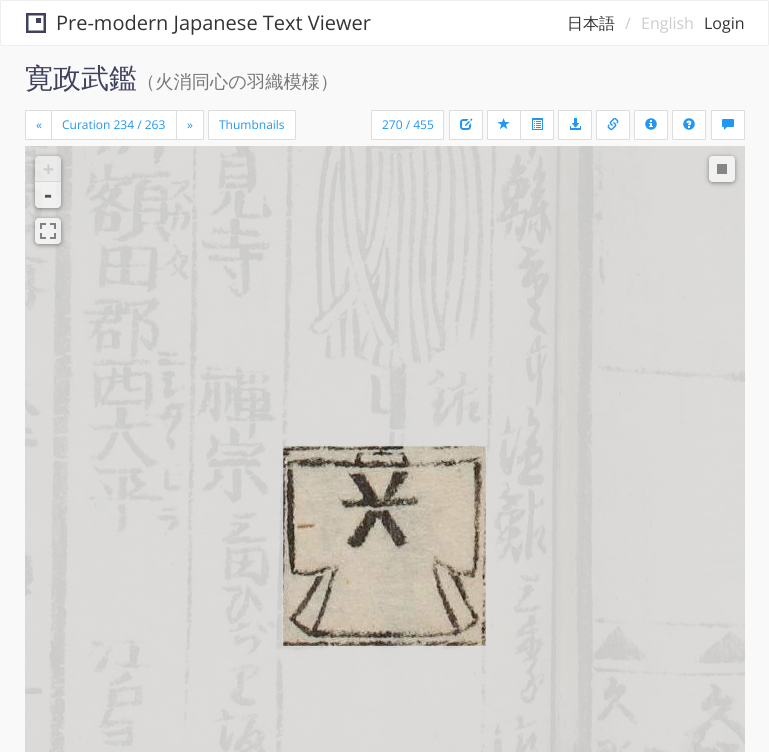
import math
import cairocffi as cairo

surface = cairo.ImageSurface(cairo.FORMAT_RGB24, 769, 752)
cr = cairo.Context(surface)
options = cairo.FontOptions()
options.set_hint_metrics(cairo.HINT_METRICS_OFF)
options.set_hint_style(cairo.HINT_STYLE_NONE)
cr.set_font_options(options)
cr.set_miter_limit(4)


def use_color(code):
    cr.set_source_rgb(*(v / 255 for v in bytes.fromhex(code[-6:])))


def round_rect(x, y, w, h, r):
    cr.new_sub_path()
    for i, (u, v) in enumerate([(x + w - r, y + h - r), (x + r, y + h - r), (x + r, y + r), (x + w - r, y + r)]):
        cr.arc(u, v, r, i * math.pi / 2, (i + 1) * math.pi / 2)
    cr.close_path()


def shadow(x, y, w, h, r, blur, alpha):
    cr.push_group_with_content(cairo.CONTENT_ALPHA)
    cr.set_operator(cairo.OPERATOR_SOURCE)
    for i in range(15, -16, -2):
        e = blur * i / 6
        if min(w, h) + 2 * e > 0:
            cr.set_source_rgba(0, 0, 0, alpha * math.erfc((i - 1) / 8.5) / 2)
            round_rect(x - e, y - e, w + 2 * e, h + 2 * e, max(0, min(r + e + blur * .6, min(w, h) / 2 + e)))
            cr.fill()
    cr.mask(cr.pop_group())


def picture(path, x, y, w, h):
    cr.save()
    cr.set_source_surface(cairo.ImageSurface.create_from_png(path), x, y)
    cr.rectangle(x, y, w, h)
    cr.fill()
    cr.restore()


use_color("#f9f9f9")
cr.paint()
use_color("#ffffff")
round_rect(0.5, 0.5, 768, 45, 1.5)
cr.fill_preserve()
use_color("#eeeeee")
cr.set_line_width(1)
cr.stroke()
picture("img1.png", 26, 13, 20, 20)
cr.select_font_face("Open Sans")
cr.set_font_size(20)
use_color("#333333")
cr.move_to(56, 30)
cr.show_text("Pre-modern Japanese Text Viewer")
cr.select_font_face("WenQuanYi Zen Hei Medium")
cr.set_font_size(16)
cr.move_to(567, 29)
cr.show_text("日本語")
cr.select_font_face("Open Sans")
use_color("#cccccc")
cr.move_to(625, 29)
cr.show_text("/")
cr.move_to(641, 29)
cr.show_text("English")
use_color("#333333")
cr.move_to(704, 29)
cr.show_text("Login")
cr.select_font_face("WenQuanYi Zen Hei Medium")
cr.set_font_size(28)
use_color("#3f415e")
cr.move_to(25, 88)
cr.show_text("寛政武鑑")
cr.set_font_size(18.25)
use_color("#777777")
cr.move_to(137, 88)
cr.show_text("（火消同心の羽織模様）")
use_color("#ffffff")
cr.new_path()
cr.move_to(26, 110.5)
cr.line_to(51.5, 110.5)
cr.line_to(51.5, 139.5)
cr.line_to(26, 139.5)
cr.curve_to(25.5, 139.5, 25.5, 139.5, 25.5, 139)
cr.line_to(25.5, 111)
cr.curve_to(25.5, 110.5, 25.5, 110.5, 26, 110.5)
cr.close_path()
cr.fill_preserve()
use_color("#dddddd")
cr.stroke()
cr.select_font_face("Open Sans")
cr.set_font_size(12)
use_color("#2196f3")
cr.move_to(36, 129)
cr.show_text("«")
use_color("#ffffff")
cr.rectangle(51.5, 110.5, 125, 29)
cr.fill_preserve()
use_color("#dddddd")
cr.stroke()
use_color("#2196f3")
cr.move_to(62, 129)
cr.show_text("Curation 234 / 263")
use_color("#ffffff")
cr.new_path()
cr.move_to(176.5, 110.5)
cr.line_to(203, 110.5)
cr.curve_to(203.5, 110.5, 203.5, 110.5, 203.5, 111)
cr.line_to(203.5, 139)
cr.curve_to(203.5, 139.5, 203.5, 139.5, 203, 139.5)
cr.line_to(176.5, 139.5)
cr.close_path()
cr.fill_preserve()
use_color("#dddddd")
cr.stroke()
use_color("#2196f3")
cr.move_to(187, 129)
cr.show_text("»")
use_color("#ffffff")
round_rect(208.5, 110.5, 87, 29, 0.5)
cr.fill_preserve()
use_color("#dddddd")
cr.stroke()
use_color("#2196f3")
cr.move_to(219, 129)
cr.show_text("Thumbnails")
use_color("#ffffff")
round_rect(371.5, 110.5, 72, 29, 0.5)
cr.fill_preserve()
use_color("#dddddd")
cr.stroke()
use_color("#2196f3")
cr.move_to(382, 129)
cr.show_text("270 / 455")
use_color("#ffffff")
round_rect(449.5, 110.5, 33, 29, 0.5)
cr.fill_preserve()
use_color("#dddddd")
cr.stroke()
picture("img2.png", 460, 118, 13, 12)
use_color("#ffffff")
cr.new_path()
cr.move_to(488, 110.5)
cr.line_to(520.5, 110.5)
cr.line_to(520.5, 139.5)
cr.line_to(488, 139.5)
cr.curve_to(487.5, 139.5, 487.5, 139.5, 487.5, 139)
cr.line_to(487.5, 111)
cr.curve_to(487.5, 110.5, 487.5, 110.5, 488, 110.5)
cr.close_path()
cr.fill_preserve()
use_color("#dddddd")
cr.stroke()
picture("img3.png", 497, 118, 13, 11)
use_color("#ffffff")
cr.new_path()
cr.move_to(520.5, 110.5)
cr.line_to(553, 110.5)
cr.curve_to(553.5, 110.5, 553.5, 110.5, 553.5, 111)
cr.line_to(553.5, 139)
cr.curve_to(553.5, 139.5, 553.5, 139.5, 553, 139.5)
cr.line_to(520.5, 139.5)
cr.close_path()
cr.fill_preserve()
use_color("#dddddd")
cr.stroke()
picture("img4.png", 532, 118, 11, 12)
use_color("#ffffff")
round_rect(558.5, 110.5, 33, 29, 0.5)
cr.fill_preserve()
use_color("#dddddd")
cr.stroke()
picture("img5.png", 570, 118, 11, 12)
use_color("#ffffff")
round_rect(596.5, 110.5, 33, 29, 0.5)
cr.fill_preserve()
use_color("#dddddd")
cr.stroke()
picture("img6.png", 607, 117, 12, 14)
use_color("#ffffff")
round_rect(634.5, 110.5, 33, 29, 0.5)
cr.fill_preserve()
use_color("#dddddd")
cr.stroke()
picture("img7.png", 645, 118, 12, 12)
use_color("#ffffff")
round_rect(672.5, 110.5, 33, 29, 0.5)
cr.fill_preserve()
use_color("#dddddd")
cr.stroke()
picture("img8.png", 683, 118, 12, 12)
use_color("#ffffff")
round_rect(711.5, 110.5, 33, 29, 0.5)
cr.fill_preserve()
use_color("#dddddd")
cr.stroke()
picture("img9.png", 722, 119, 12, 11)
picture("img10.png", 25, 146, 720, 606)
cr.new_path()
cr.move_to(-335, 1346)
cr.line_to(-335, -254)
cr.line_to(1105, -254)
cr.line_to(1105, 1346)
cr.close_path()
cr.move_to(283, 446)
cr.line_to(486, 446)
cr.line_to(486, 646)
cr.line_to(283, 646)
cr.close_path()
cr.set_source_rgba(0.867, 0.867, 0.867, 0.5)
cr.set_line_cap(cairo.LINE_CAP_ROUND)
cr.set_line_join(cairo.LINE_JOIN_ROUND)
cr.stroke()
cr.save()
cr.set_fill_rule(cairo.FILL_RULE_EVEN_ODD)
cr.new_path()
cr.move_to(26, 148)
cr.line_to(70, 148)
cr.line_to(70, 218)
cr.line_to(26, 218)
cr.close_path()
cr.move_to(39, 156)
cr.line_to(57, 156)
cr.curve_to(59, 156, 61, 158, 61, 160)
cr.line_to(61, 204)
cr.curve_to(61, 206, 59, 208, 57, 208)
cr.line_to(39, 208)
cr.curve_to(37, 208, 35, 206, 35, 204)
cr.line_to(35, 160)
cr.curve_to(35, 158, 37, 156, 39, 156)
cr.close_path()
cr.clip()
use_color("#000000")
shadow(35, 157, 26, 52, 4, 2.5, 0.41)
cr.restore()
cr.set_source_rgba(0.957, 0.957, 0.957, 0.63)
cr.new_path()
cr.move_to(39, 156)
cr.line_to(57, 156)
cr.curve_to(59, 156, 61, 158, 61, 160)
cr.line_to(61, 182)
cr.line_to(35, 182)
cr.line_to(35, 160)
cr.curve_to(35, 158, 37, 156, 39, 156)
cr.close_path()
cr.fill()
cr.set_source_rgba(0.8, 0.8, 0.8, 0.63)
cr.rectangle(35, 181, 26, 1)
cr.fill()
cr.select_font_face("DejaVu Sans Mono", cairo.FONT_SLANT_NORMAL, cairo.FONT_WEIGHT_BOLD)
cr.set_font_size(18)
use_color("#cccccc")
cr.move_to(43, 175)
cr.show_text("+")
cr.set_source_rgba(1, 1, 1, 0.63)
cr.new_path()
cr.move_to(35, 182)
cr.line_to(61, 182)
cr.line_to(61, 204)
cr.curve_to(61, 206, 59, 208, 57, 208)
cr.line_to(39, 208)
cr.curve_to(37, 208, 35, 206, 35, 204)
cr.close_path()
cr.fill()
cr.set_font_size(20)
use_color("#515050")
cr.move_to(42, 202)
cr.show_text("-")
cr.save()
cr.set_fill_rule(cairo.FILL_RULE_EVEN_ODD)
cr.new_path()
cr.move_to(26, 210)
cr.line_to(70, 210)
cr.line_to(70, 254)
cr.line_to(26, 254)
cr.close_path()
cr.move_to(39, 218)
cr.line_to(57, 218)
cr.curve_to(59, 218, 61, 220, 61, 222)
cr.line_to(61, 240)
cr.curve_to(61, 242, 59, 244, 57, 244)
cr.line_to(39, 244)
cr.curve_to(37, 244, 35, 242, 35, 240)
cr.line_to(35, 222)
cr.curve_to(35, 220, 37, 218, 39, 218)
cr.close_path()
cr.clip()
use_color("#000000")
shadow(35, 219, 26, 26, 4, 2.5, 0.41)
cr.restore()
cr.set_source_rgba(1, 1, 1, 0.63)
round_rect(35, 218, 26, 26, 4)
cr.fill()
picture("img11.png", 40, 223, 16, 16)
cr.save()
cr.set_fill_rule(cairo.FILL_RULE_EVEN_ODD)
cr.new_path()
cr.move_to(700, 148)
cr.line_to(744, 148)
cr.line_to(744, 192)
cr.line_to(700, 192)
cr.close_path()
cr.move_to(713, 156)
cr.line_to(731, 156)
cr.curve_to(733, 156, 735, 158, 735, 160)
cr.line_to(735, 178)
cr.curve_to(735, 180, 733, 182, 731, 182)
cr.line_to(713, 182)
cr.curve_to(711, 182, 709, 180, 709, 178)
cr.line_to(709, 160)
cr.curve_to(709, 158, 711, 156, 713, 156)
cr.close_path()
cr.clip()
use_color("#000000")
shadow(709, 157, 26, 26, 4, 2.5, 0.41)
cr.restore()
round_rect(709, 156, 26, 26, 4)
cr.fill()
use_color("#868585")
cr.rectangle(717, 164, 10, 10)
cr.fill()
surface.write_to_png("result.png")
